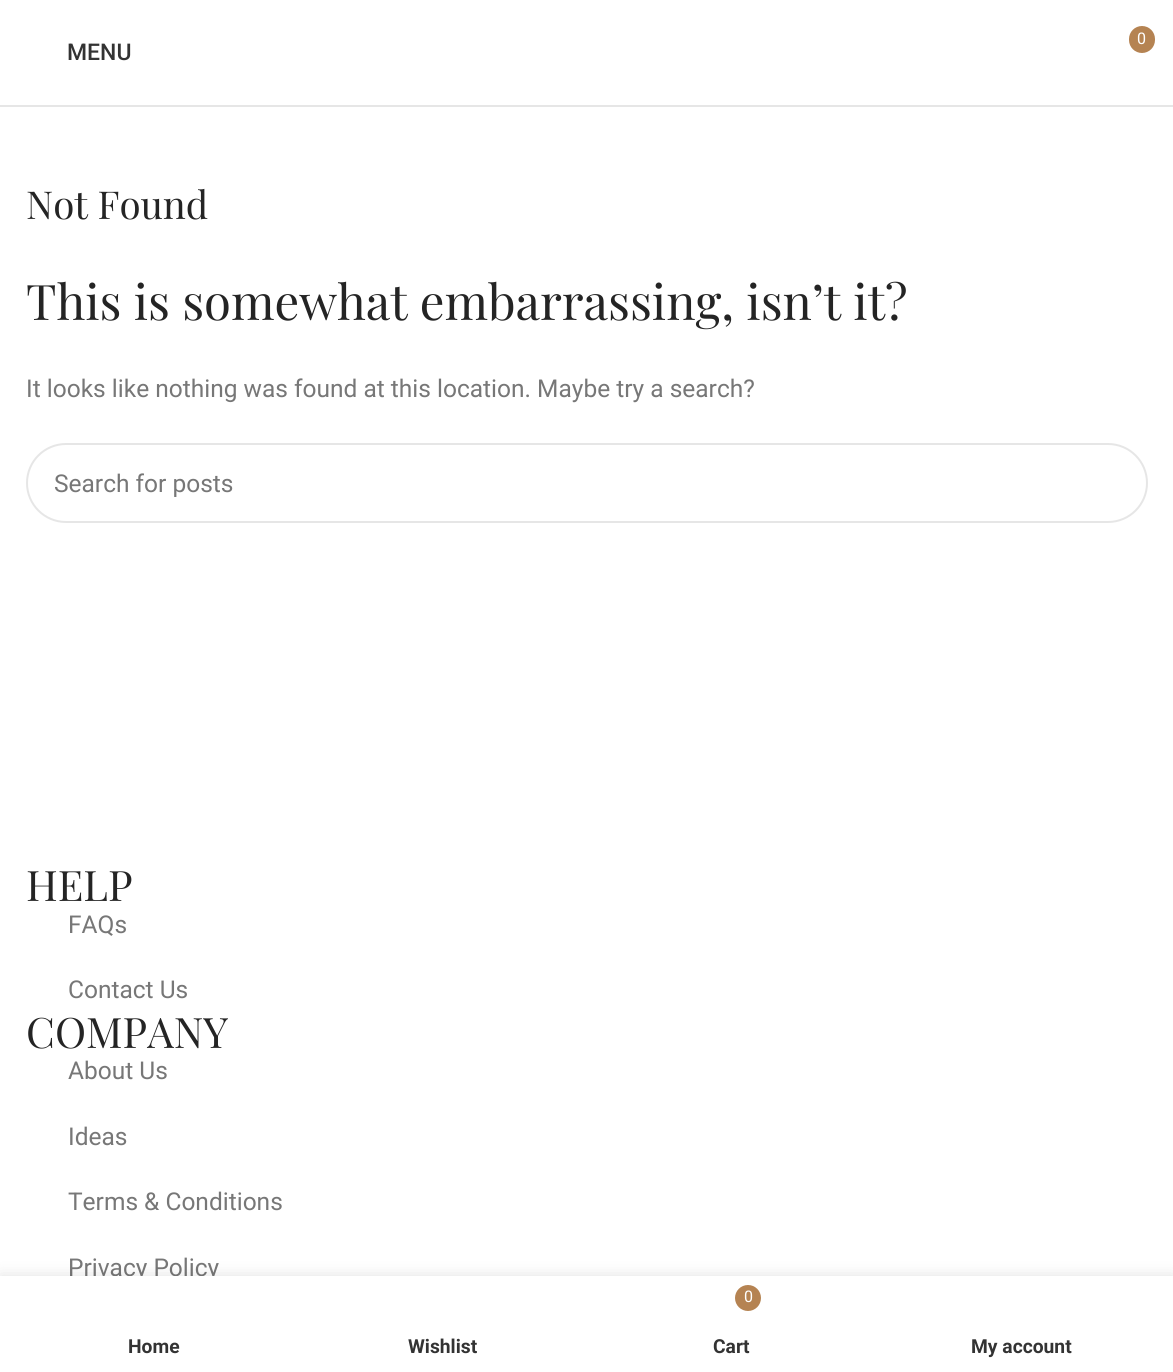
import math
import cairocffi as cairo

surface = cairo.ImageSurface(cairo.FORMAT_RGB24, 1173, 1372)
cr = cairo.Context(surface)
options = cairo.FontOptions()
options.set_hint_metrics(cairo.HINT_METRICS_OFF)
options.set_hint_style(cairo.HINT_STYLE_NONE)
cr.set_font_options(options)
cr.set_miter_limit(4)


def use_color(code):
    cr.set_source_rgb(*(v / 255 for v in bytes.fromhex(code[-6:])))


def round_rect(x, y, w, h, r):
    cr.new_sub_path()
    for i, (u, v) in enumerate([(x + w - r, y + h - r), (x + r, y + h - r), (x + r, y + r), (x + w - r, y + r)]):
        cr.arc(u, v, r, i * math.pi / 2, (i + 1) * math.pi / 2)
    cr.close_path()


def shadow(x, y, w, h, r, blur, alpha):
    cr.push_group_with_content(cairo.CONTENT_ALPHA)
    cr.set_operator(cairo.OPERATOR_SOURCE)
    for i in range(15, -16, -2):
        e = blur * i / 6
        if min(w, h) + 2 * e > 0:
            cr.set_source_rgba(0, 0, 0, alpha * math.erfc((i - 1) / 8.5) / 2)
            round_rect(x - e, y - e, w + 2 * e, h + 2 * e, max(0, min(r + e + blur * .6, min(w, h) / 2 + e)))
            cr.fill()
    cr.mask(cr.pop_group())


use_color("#ffffff")
cr.paint()
use_color("#e6e6e6")
cr.rectangle(0, 105, 1173, 2)
cr.fill()
use_color("#b58352")
round_rect(1129, 26, 26, 27, 13)
cr.fill()
cr.select_font_face("Roboto")
cr.set_font_size(16)
use_color("#ffffff")
cr.move_to(1137, 44)
cr.show_text("0")
cr.select_font_face("Roboto Medium")
cr.set_font_size(23)
use_color("#333333")
cr.move_to(67, 60)
cr.show_text("MENU")
cr.select_font_face("Playfair Display")
cr.set_font_size(38.5)
use_color("#242424")
cr.move_to(26, 219)
cr.show_text("Not Found")
cr.set_font_size(49)
cr.move_to(26, 320)
cr.show_text("This is somewhat embarrassing, isn’t it?")
cr.select_font_face("Roboto")
cr.set_font_size(24.5)
use_color("#777777")
cr.move_to(26, 397)
cr.show_text("It looks like nothing was found at this location. Maybe try a search?")
round_rect(27, 444, 1120, 78, 39)
use_color("#e6e6e6")
cr.stroke()
use_color("#777777")
cr.move_to(54, 492)
cr.show_text("Search for posts")
cr.select_font_face("Playfair Display")
cr.set_font_size(42)
use_color("#242424")
cr.move_to(26, 901)
cr.show_text("HELP")
cr.select_font_face("Roboto")
cr.set_font_size(24.5)
use_color("#777777")
cr.move_to(68, 933)
cr.show_text("FAQs")
cr.move_to(68, 998)
cr.show_text("Contact Us")
cr.select_font_face("Playfair Display")
cr.set_font_size(42)
use_color("#242424")
cr.move_to(26, 1048)
cr.show_text("COMPANY")
cr.select_font_face("Roboto")
cr.set_font_size(24.5)
use_color("#777777")
cr.move_to(68, 1079)
cr.show_text("About Us")
cr.move_to(68, 1145)
cr.show_text("Ideas")
cr.move_to(68, 1210)
cr.show_text("Terms & Conditions")
cr.move_to(68, 1276)
cr.show_text("Privacy Policy")
use_color("#000000")
shadow(0, 1276, 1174, 96, 0, 8, 0.12)
use_color("#ffffff")
cr.rectangle(0, 1276, 1173, 96)
cr.fill()
cr.select_font_face("Roboto", cairo.FONT_SLANT_NORMAL, cairo.FONT_WEIGHT_BOLD)
cr.set_font_size(19.25)
use_color("#333333")
cr.move_to(128, 1353)
cr.show_text("Home")
cr.move_to(408, 1353)
cr.show_text("Wishlist")
use_color("#b58352")
cr.new_path()
cr.arc(748, 1298, 13, 0, 2 * math.pi)
cr.fill()
cr.select_font_face("Roboto")
cr.set_font_size(16)
use_color("#ffffff")
cr.move_to(744, 1302)
cr.show_text("0")
cr.select_font_face("Roboto", cairo.FONT_SLANT_NORMAL, cairo.FONT_WEIGHT_BOLD)
cr.set_font_size(19.25)
use_color("#333333")
cr.move_to(713, 1353)
cr.show_text("Cart")
cr.move_to(971, 1353)
cr.show_text("My account")
surface.write_to_png("result.png")
